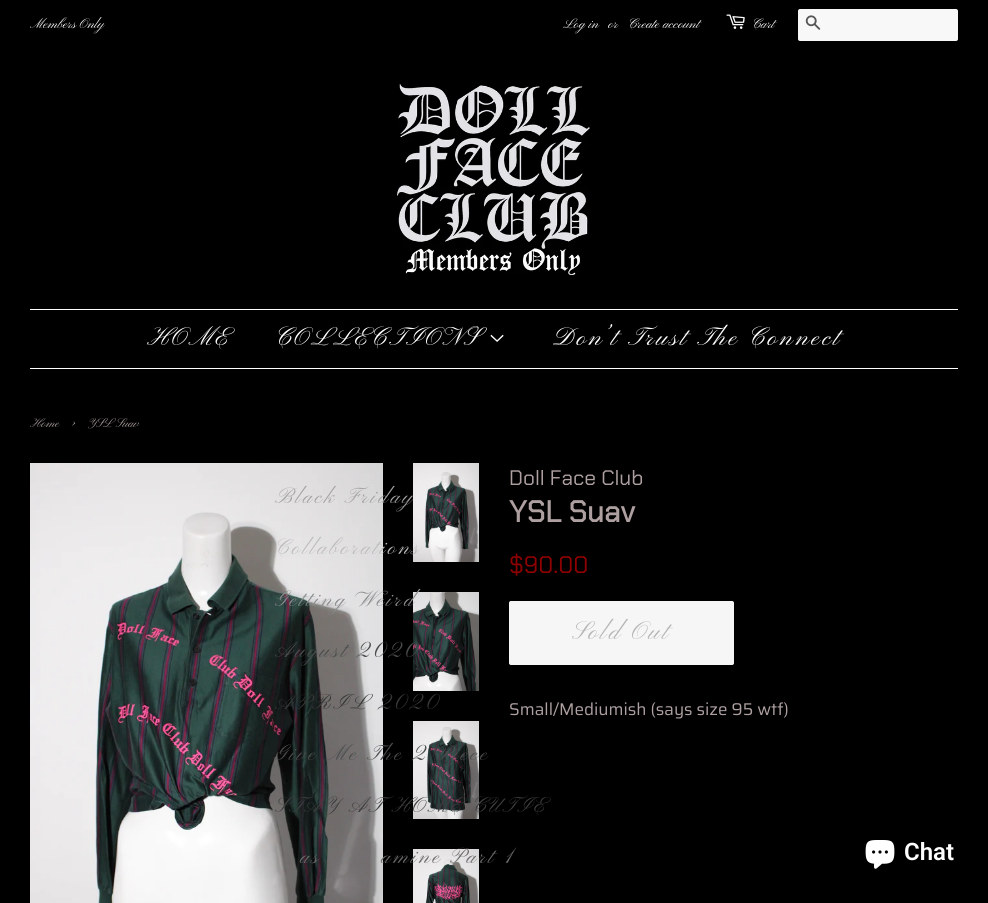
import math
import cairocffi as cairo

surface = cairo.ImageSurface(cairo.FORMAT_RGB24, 988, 903)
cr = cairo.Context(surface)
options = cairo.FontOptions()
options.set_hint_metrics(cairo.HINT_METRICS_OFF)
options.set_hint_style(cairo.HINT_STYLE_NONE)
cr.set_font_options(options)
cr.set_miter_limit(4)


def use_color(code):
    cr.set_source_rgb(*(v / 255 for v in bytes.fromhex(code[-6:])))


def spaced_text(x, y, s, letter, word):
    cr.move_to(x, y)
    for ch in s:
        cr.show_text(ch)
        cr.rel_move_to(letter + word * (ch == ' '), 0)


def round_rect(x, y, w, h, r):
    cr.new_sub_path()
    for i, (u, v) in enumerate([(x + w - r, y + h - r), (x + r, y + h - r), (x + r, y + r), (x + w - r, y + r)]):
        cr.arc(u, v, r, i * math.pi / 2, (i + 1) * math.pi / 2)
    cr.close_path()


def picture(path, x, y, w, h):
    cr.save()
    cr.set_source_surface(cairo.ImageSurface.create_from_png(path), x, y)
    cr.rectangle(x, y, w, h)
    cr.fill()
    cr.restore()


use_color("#000000")
cr.paint()
cr.select_font_face("Pinyon Script")
cr.set_font_size(14)
use_color("#ffffff")
cr.move_to(30, 28)
cr.show_text("Members Only")
cr.move_to(563, 28)
cr.show_text("Log in")
cr.move_to(608, 28)
cr.show_text("or")
cr.move_to(628, 28)
cr.show_text("Create account")
picture("img1.png", 726, 14, 19, 15)
cr.move_to(752, 28)
cr.show_text("Cart")
round_rect(798, 9, 160, 32, 2)
cr.fill()
cr.set_source_rgba(0, 0, 0, 0.03)
cr.rectangle(798, 9, 160, 32)
cr.fill()
picture("img2.png", 805, 15, 16, 15)
picture("img3.png", 396, 84, 194, 191)
use_color("#ffffff")
cr.rectangle(30, 309, 928, 1)
cr.fill()
cr.rectangle(30, 368, 928, 1)
cr.fill()
cr.set_font_size(26)
spaced_text(147, 345, "HOME", 2.6, 0)
spaced_text(275, 345, "COLLECTIONS", 2.6, 0)
picture("img4.png", 490, 334, 14, 8)
picture("img5.png", 30, 463, 353, 440)
picture("img6.png", 413, 463, 66, 99)
cr.set_font_size(22.1)
use_color("#a5a3a4")
spaced_text(275, 503, "Black Friday", 2.6, 0)
use_color("#bdbcbc")
spaced_text(275, 554, "Collaborations", 2.6, 0)
picture("img7.png", 413, 592, 66, 99)
use_color("#8a8c8d")
spaced_text(275, 606, "Getting Weird", 2.6, 0)
use_color("#4b4d4d")
spaced_text(275, 657, "August 2020", 2.6, 0)
use_color("#363737")
spaced_text(275, 709, "APRIL 2020", 2.6, 0)
picture("img8.png", 413, 721, 66, 98)
use_color("#4b4d4d")
spaced_text(275, 760, "Give Me The 2 Piece", 2.6, 0)
use_color("#3d3d3e")
spaced_text(275, 812, "STAY AT HOME CUTIE", 2.6, 0)
use_color("#6a6a6a")
spaced_text(300, 863, "as", 2.6, 0)
picture("img9.png", 413, 849, 66, 54)
spaced_text(381, 863, "amine Part 1", 2.6, 0)
cr.set_font_size(26)
use_color("#ffffff")
spaced_text(553, 345, "Don’t Trust The Connect", 2.6, 0)
cr.set_font_size(13)
use_color("#aea0a0")
cr.move_to(30, 427)
cr.show_text("Home")
cr.set_font_size(18)
cr.move_to(72, 427)
cr.show_text("›")
cr.set_font_size(13)
cr.move_to(88, 427)
cr.show_text("YSL Suav")
cr.select_font_face("Chakra Petch")
cr.set_font_size(21)
cr.move_to(509, 485)
cr.show_text("Doll Face Club")
cr.select_font_face("Chakra Petch", cairo.FONT_SLANT_NORMAL, cairo.FONT_WEIGHT_BOLD)
cr.set_font_size(30)
cr.move_to(509, 522)
cr.show_text("YSL Suav")
cr.select_font_face("Chakra Petch")
cr.set_font_size(24)
use_color("#8f0000")
cr.move_to(509, 573)
cr.show_text("$90.00")
use_color("#f6f6f6")
round_rect(509.5, 601.5, 224, 63, 1.5)
cr.fill_preserve()
cr.set_line_width(1)
cr.stroke()
cr.select_font_face("Pinyon Script")
cr.set_font_size(26)
use_color("#b6b6b6")
spaced_text(572, 639, "Sold Out", 2.6, 0)
cr.select_font_face("Saira")
cr.set_font_size(17)
use_color("#aea0a0")
cr.move_to(509, 715)
cr.show_text("Small/Mediumish (says size 95 wtf)")
picture("img10.png", 865, 840, 30, 29)
cr.select_font_face("Roboto SemiBold")
cr.set_font_size(24)
use_color("#ffffff")
cr.move_to(904, 860)
cr.show_text("Chat")
surface.write_to_png("result.png")
